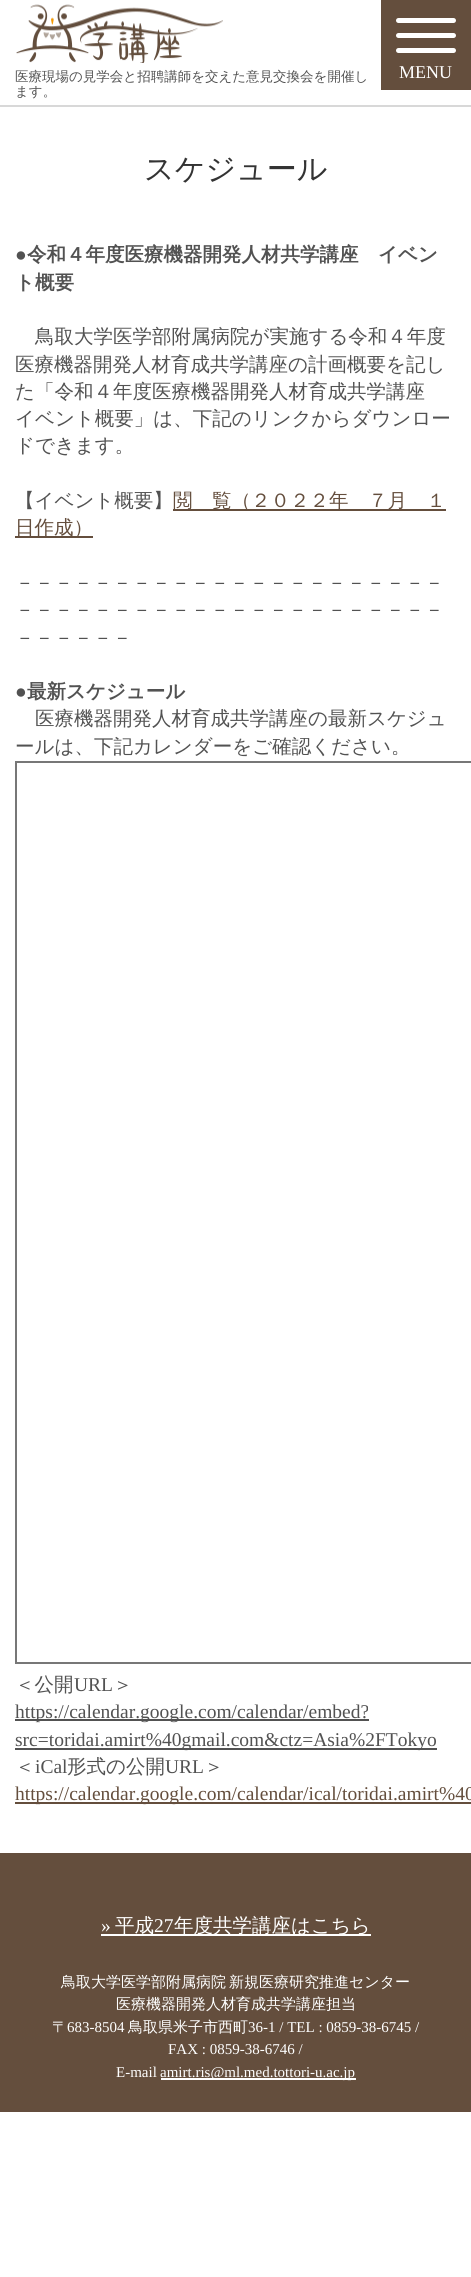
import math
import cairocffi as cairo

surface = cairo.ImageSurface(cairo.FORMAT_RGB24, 471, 2277)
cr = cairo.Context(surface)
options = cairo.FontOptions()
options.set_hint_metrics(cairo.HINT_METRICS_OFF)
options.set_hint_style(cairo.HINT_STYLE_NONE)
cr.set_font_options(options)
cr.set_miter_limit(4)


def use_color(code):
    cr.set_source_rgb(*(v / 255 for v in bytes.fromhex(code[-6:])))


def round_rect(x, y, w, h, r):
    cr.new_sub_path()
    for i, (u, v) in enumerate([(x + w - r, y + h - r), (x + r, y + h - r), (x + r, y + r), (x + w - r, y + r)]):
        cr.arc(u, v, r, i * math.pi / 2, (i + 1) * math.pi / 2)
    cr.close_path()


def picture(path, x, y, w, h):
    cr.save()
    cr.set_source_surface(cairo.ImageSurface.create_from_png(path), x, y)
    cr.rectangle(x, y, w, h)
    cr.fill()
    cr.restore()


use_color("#ffffff")
cr.paint()
use_color("#d8d8d8")
cr.rectangle(0, 105, 471, 2)
cr.fill()
picture("img1.png", 16, 4, 207, 59)
cr.select_font_face("WenQuanYi Zen Hei Medium")
cr.set_font_size(13.5)
use_color("#525252")
cr.move_to(15, 81)
cr.show_text("医療現場の見学会と招聘講師を交えた意見交換会を開催し")
cr.move_to(15, 96)
cr.show_text("ます。")
use_color("#644e3d")
cr.rectangle(381, 0, 90, 90)
cr.fill()
use_color("#ffffff")
round_rect(396, 33, 60, 5, 2.5)
cr.fill()
round_rect(396, 18, 60, 5, 2.5)
cr.fill()
round_rect(396, 48, 60, 5, 2.5)
cr.fill()
cr.select_font_face("Liberation Serif")
cr.set_font_size(18)
cr.move_to(399, 78)
cr.show_text("MENU")
cr.select_font_face("WenQuanYi Zen Hei Medium")
cr.set_font_size(30)
use_color("#333333")
cr.move_to(144, 179)
cr.show_text("スケジュール")
cr.select_font_face("Liberation Serif")
cr.set_font_size(19.5)
use_color("#525252")
cr.move_to(15, 261)
cr.show_text("●")
cr.select_font_face("WenQuanYi Zen Hei", cairo.FONT_SLANT_NORMAL, cairo.FONT_WEIGHT_BOLD)
cr.move_to(27, 261)
cr.show_text("令和４年度医療機器開発人材共学講座　イベン")
cr.move_to(15, 289)
cr.show_text("ト概要")
cr.select_font_face("WenQuanYi Zen Hei Medium")
cr.move_to(35, 343)
cr.show_text("鳥取大学医学部附属病院が実施する令和４年度")
cr.move_to(15, 371)
cr.show_text("医療機器開発人材育成共学講座の計画概要を記し")
cr.move_to(15, 398)
cr.show_text("た「令和４年度医療機器開発人材育成共学講座")
cr.move_to(15, 425)
cr.show_text("イベント概要」は、下記のリンクからダウンロー")
cr.move_to(15, 452)
cr.show_text("ドできます。")
cr.move_to(15, 507)
cr.show_text("【イベント概要】")
use_color("#644e3d")
cr.rectangle(173, 509, 273, 2)
cr.fill()
cr.move_to(173, 507)
cr.show_text("閲　覧（２０２２年　７月　１")
cr.rectangle(15, 536, 78, 2)
cr.fill()
cr.move_to(15, 534)
cr.show_text("日作成）")
use_color("#525252")
cr.move_to(15, 589)
cr.show_text("－－－－－－－－－－－－－－－－－－－－－－")
cr.move_to(15, 616)
cr.show_text("－－－－－－－－－－－－－－－－－－－－－－")
cr.move_to(15, 644)
cr.show_text("－－－－－－")
cr.select_font_face("Liberation Serif", cairo.FONT_SLANT_NORMAL, cairo.FONT_WEIGHT_BOLD)
cr.move_to(15, 698)
cr.show_text("●")
cr.select_font_face("WenQuanYi Zen Hei", cairo.FONT_SLANT_NORMAL, cairo.FONT_WEIGHT_BOLD)
cr.move_to(27, 698)
cr.show_text("最新スケジュール")
cr.select_font_face("WenQuanYi Zen Hei Medium")
cr.move_to(35, 725)
cr.show_text("医療機器開発人材育成共学講座の最新スケジュ")
cr.move_to(15, 753)
cr.show_text("ールは、下記カレンダーをご確認ください。")
cr.rectangle(16, 762, 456, 901)
use_color("#777777")
cr.stroke()
use_color("#525252")
cr.move_to(15, 1691)
cr.show_text("＜公開")
cr.select_font_face("Liberation Serif")
cr.move_to(74, 1691)
cr.show_text("URL")
cr.select_font_face("WenQuanYi Zen Hei Medium")
cr.move_to(113, 1691)
cr.show_text("＞")
cr.rectangle(15, 1719, 354, 2)
cr.fill()
cr.select_font_face("Liberation Serif")
cr.move_to(15, 1718)
cr.show_text("https://calendar.google.com/calendar/embed?")
cr.rectangle(15, 1748, 422, 2)
cr.fill()
cr.move_to(15, 1746)
cr.show_text("src=toridai.amirt%40gmail.com&ctz=Asia%2FTokyo")
cr.select_font_face("WenQuanYi Zen Hei Medium")
cr.move_to(15, 1773)
cr.show_text("＜")
cr.select_font_face("Liberation Serif")
cr.move_to(35, 1773)
cr.show_text("iCal")
cr.select_font_face("WenQuanYi Zen Hei Medium")
cr.move_to(67, 1773)
cr.show_text("形式の公開")
cr.select_font_face("Liberation Serif")
cr.move_to(165, 1773)
cr.show_text("URL")
cr.select_font_face("WenQuanYi Zen Hei Medium")
cr.move_to(204, 1773)
cr.show_text("＞")
use_color("#644e3d")
cr.rectangle(15, 1802, 456, 2)
cr.fill()
cr.select_font_face("Liberation Serif")
cr.move_to(15, 1800)
cr.show_text("https://calendar.google.com/calendar/ical/toridai.amirt%40")
cr.rectangle(0, 1853, 471, 259)
cr.fill()
use_color("#ffffff")
cr.move_to(101, 1932)
cr.show_text("»")
cr.rectangle(101, 1934, 270, 2)
cr.fill()
cr.select_font_face("WenQuanYi Zen Hei Medium")
cr.move_to(115, 1932)
cr.show_text("平成")
cr.select_font_face("Liberation Serif")
cr.move_to(154, 1932)
cr.show_text("27")
cr.select_font_face("WenQuanYi Zen Hei Medium")
cr.move_to(174, 1932)
cr.show_text("年度共学講座はこちら")
cr.set_font_size(15)
cr.move_to(61, 1987)
cr.show_text("鳥取大学医学部附属病院")
cr.move_to(229, 1987)
cr.show_text("新規医療研究推進センター")
cr.move_to(116, 2009)
cr.show_text("医療機器開発人材育成共学講座担当")
cr.move_to(52, 2032)
cr.show_text("〒")
cr.select_font_face("Liberation Serif")
cr.move_to(67, 2032)
cr.show_text("683-8504")
cr.select_font_face("WenQuanYi Zen Hei Medium")
cr.move_to(128, 2032)
cr.show_text("鳥取県米子市西町")
cr.select_font_face("Liberation Serif")
cr.move_to(248, 2032)
cr.show_text("36-1 / TEL : 0859-38-6745 /")
cr.move_to(168, 2054)
cr.show_text("FAX : 0859-38-6746 /")
cr.move_to(116, 2077)
cr.show_text("E-mail")
cr.rectangle(161, 2078, 195, 2)
cr.fill()
cr.move_to(160, 2077)
cr.show_text("amirt.ris@ml.med.tottori-u.ac.jp")
surface.write_to_png("result.png")
